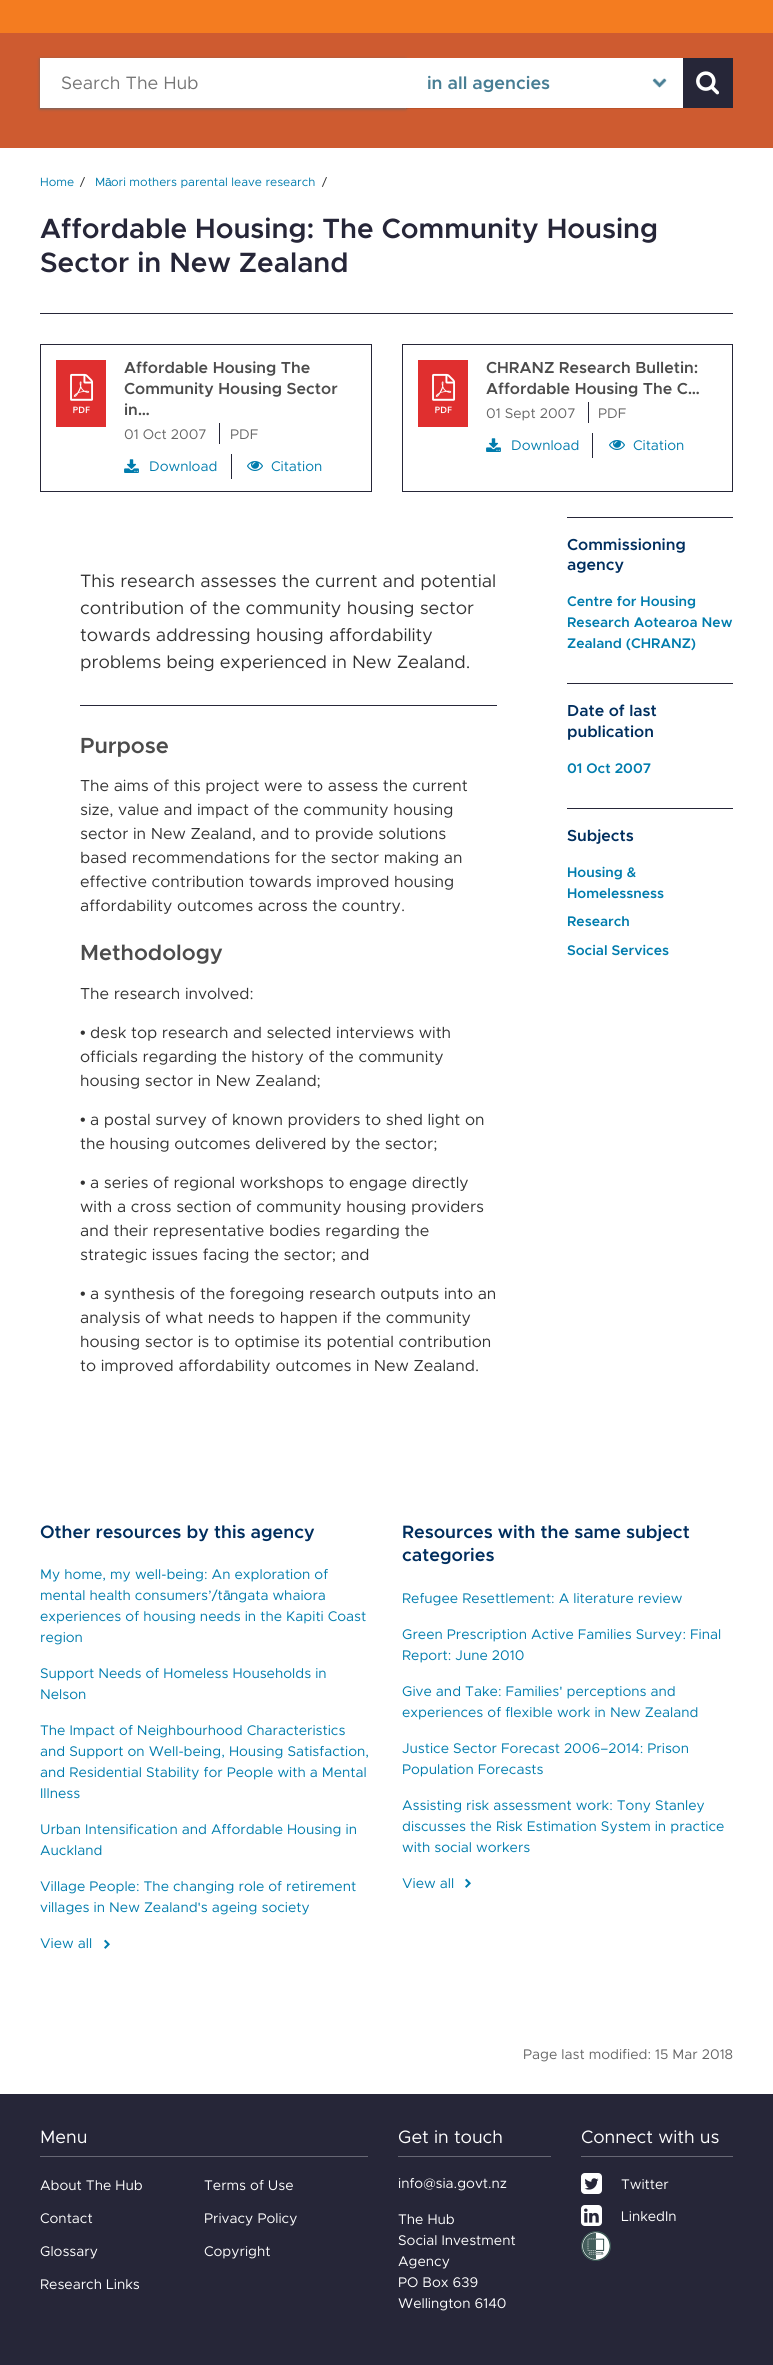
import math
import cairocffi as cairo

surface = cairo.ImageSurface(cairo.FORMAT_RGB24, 773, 2365)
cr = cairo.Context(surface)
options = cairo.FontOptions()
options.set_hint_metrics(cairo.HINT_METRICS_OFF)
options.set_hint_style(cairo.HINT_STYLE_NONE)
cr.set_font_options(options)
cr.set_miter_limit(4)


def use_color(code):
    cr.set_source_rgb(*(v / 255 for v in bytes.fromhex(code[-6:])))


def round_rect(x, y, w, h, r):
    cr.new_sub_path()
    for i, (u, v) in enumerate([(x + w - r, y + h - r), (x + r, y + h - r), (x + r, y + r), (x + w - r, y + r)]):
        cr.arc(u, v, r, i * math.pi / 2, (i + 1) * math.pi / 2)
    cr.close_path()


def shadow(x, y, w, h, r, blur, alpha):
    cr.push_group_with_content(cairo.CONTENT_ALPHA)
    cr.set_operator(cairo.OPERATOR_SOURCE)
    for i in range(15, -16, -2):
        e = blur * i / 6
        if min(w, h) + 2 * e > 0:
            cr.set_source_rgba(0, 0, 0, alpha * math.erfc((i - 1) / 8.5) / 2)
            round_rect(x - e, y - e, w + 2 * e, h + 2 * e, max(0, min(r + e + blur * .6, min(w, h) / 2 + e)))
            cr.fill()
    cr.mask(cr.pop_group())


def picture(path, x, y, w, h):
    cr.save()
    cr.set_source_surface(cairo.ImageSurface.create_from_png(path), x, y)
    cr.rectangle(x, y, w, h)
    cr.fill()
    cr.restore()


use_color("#ffffff")
cr.paint()
use_color("#f47c20")
cr.rectangle(0, 0, 773, 33)
cr.fill()
use_color("#ce5b30")
cr.rectangle(0, 33, 773, 115)
cr.fill()
use_color("#666666")
shadow(40, 59, 366, 50, 0, 1.5, 1)
use_color("#ffffff")
cr.rectangle(40, 58, 643, 50)
cr.fill()
cr.select_font_face("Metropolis")
cr.set_font_size(18)
use_color("#757575")
cr.move_to(61, 89)
cr.show_text("Search The Hub")
cr.set_source_rgba(0, 0, 0, 0.1)
cr.rectangle(406, 108, 277, 1)
cr.fill()
picture("img1.png", 652, 78, 15, 10)
cr.select_font_face("Metropolis SemiBold")
use_color("#487e94")
cr.move_to(427, 89)
cr.show_text("in all agencies")
use_color("#262638")
cr.rectangle(683, 58, 50, 50)
cr.fill()
picture("img2.png", 696, 71, 23, 24)
cr.select_font_face("Metropolis")
cr.set_font_size(12)
use_color("#007cad")
cr.move_to(40, 186)
cr.show_text("Home")
use_color("#333333")
cr.move_to(80, 186)
cr.show_text("/")
use_color("#007cad")
cr.move_to(95, 186)
cr.show_text("M")
cr.select_font_face("Liberation Sans")
cr.move_to(105, 186)
cr.show_text("ā")
cr.select_font_face("Metropolis")
cr.move_to(111, 186)
cr.show_text("ori mothers parental leave research")
use_color("#333333")
cr.move_to(322, 186)
cr.show_text("/")
cr.select_font_face("Metropolis SemiBold")
cr.set_font_size(28)
use_color("#262638")
cr.move_to(40, 238)
cr.show_text("Affordable Housing: The Community Housing")
cr.move_to(40, 272)
cr.show_text("Sector in New Zealand")
cr.rectangle(40, 313, 693, 1)
cr.fill()
cr.rectangle(40.5, 344.5, 331, 147)
cr.set_line_width(1)
cr.stroke()
picture("img3.png", 56, 360, 50, 67)
cr.set_font_size(16)
use_color("#4c4c4c")
cr.move_to(124, 373)
cr.show_text("Affordable Housing The")
cr.move_to(124, 394)
cr.show_text("Community Housing Sector")
cr.move_to(124, 415)
cr.show_text("in…")
cr.select_font_face("Metropolis")
cr.set_font_size(14)
use_color("#666666")
cr.move_to(124, 439)
cr.show_text("01 Oct 2007")
use_color("#262638")
cr.rectangle(219, 423, 1, 21)
cr.fill()
use_color("#666666")
cr.move_to(230, 439)
cr.show_text("PDF")
picture("img4.png", 124, 459, 15, 14)
use_color("#007cad")
cr.move_to(149, 471)
cr.show_text("Download")
use_color("#262638")
cr.rectangle(231, 454, 1, 25)
cr.fill()
picture("img5.png", 247, 461, 16, 10)
use_color("#007cad")
cr.move_to(271, 471)
cr.show_text("Citation")
cr.rectangle(402.5, 344.5, 330, 147)
use_color("#262638")
cr.stroke()
picture("img3.png", 418, 360, 50, 67)
cr.select_font_face("Metropolis SemiBold")
cr.set_font_size(16)
use_color("#4c4c4c")
cr.move_to(486, 373)
cr.show_text("CHRANZ Research Bulletin:")
cr.move_to(486, 394)
cr.show_text("Affordable Housing The C…")
cr.select_font_face("Metropolis")
cr.set_font_size(14)
use_color("#666666")
cr.move_to(486, 418)
cr.show_text("01 Sept 2007")
use_color("#262638")
cr.rectangle(588, 402, 1, 21)
cr.fill()
use_color("#666666")
cr.move_to(598, 418)
cr.show_text("PDF")
picture("img4.png", 486, 438, 15, 14)
use_color("#007cad")
cr.move_to(511, 450)
cr.show_text("Download")
use_color("#262638")
cr.rectangle(592, 433, 1, 25)
cr.fill()
picture("img5.png", 609, 440, 16, 10)
use_color("#007cad")
cr.move_to(633, 450)
cr.show_text("Citation")
use_color("#262638")
cr.rectangle(80, 705, 417, 1)
cr.fill()
cr.set_font_size(18)
use_color("#333333")
cr.move_to(80, 587)
cr.show_text("This research assesses the current and potential")
cr.move_to(80, 614)
cr.show_text("contribution of the community housing sector")
cr.move_to(80, 641)
cr.show_text("towards addressing housing affordability")
cr.move_to(80, 668)
cr.show_text("problems being experienced in New Zealand.")
cr.select_font_face("Metropolis SemiBold")
cr.set_font_size(22)
use_color("#4c4c4c")
cr.move_to(80, 753)
cr.show_text("Purpose")
cr.select_font_face("Metropolis")
cr.set_font_size(16)
use_color("#333333")
cr.move_to(80, 791)
cr.show_text("The aims of this project were to assess the current")
cr.move_to(80, 815)
cr.show_text("size, value and impact of the community housing")
cr.move_to(80, 839)
cr.show_text("sector in New Zealand, and to provide solutions")
cr.move_to(80, 863)
cr.show_text("based recommendations for the sector making an")
cr.move_to(80, 887)
cr.show_text("effective contribution towards improved housing")
cr.move_to(80, 911)
cr.show_text("affordability outcomes across the country.")
cr.select_font_face("Metropolis SemiBold")
cr.set_font_size(22)
use_color("#4c4c4c")
cr.move_to(80, 960)
cr.show_text("Methodology")
cr.select_font_face("Metropolis")
cr.set_font_size(16)
use_color("#333333")
cr.move_to(80, 999)
cr.show_text("The research involved:")
cr.select_font_face("Liberation Sans")
cr.move_to(80, 1038)
cr.show_text("•")
cr.select_font_face("Metropolis")
cr.move_to(90, 1038)
cr.show_text("desk top research and selected interviews with")
cr.move_to(80, 1062)
cr.show_text("officials regarding the history of the community")
cr.move_to(80, 1086)
cr.show_text("housing sector in New Zealand;")
cr.select_font_face("Liberation Sans")
cr.move_to(80, 1125)
cr.show_text("•")
cr.select_font_face("Metropolis")
cr.move_to(90, 1125)
cr.show_text("a postal survey of known providers to shed light on")
cr.move_to(80, 1149)
cr.show_text("the housing outcomes delivered by the sector;")
cr.select_font_face("Liberation Sans")
cr.move_to(80, 1188)
cr.show_text("•")
cr.select_font_face("Metropolis")
cr.move_to(90, 1188)
cr.show_text("a series of regional workshops to engage directly")
cr.move_to(80, 1212)
cr.show_text("with a cross section of community housing providers")
cr.move_to(80, 1236)
cr.show_text("and their representative bodies regarding the")
cr.move_to(80, 1260)
cr.show_text("strategic issues facing the sector; and")
cr.select_font_face("Liberation Sans")
cr.move_to(80, 1299)
cr.show_text("•")
cr.select_font_face("Metropolis")
cr.move_to(90, 1299)
cr.show_text("a synthesis of the foregoing research outputs into an")
cr.move_to(80, 1323)
cr.show_text("analysis of what needs to happen if the community")
cr.move_to(80, 1347)
cr.show_text("housing sector is to optimise its potential contribution")
cr.move_to(80, 1371)
cr.show_text("to improved affordability outcomes in New Zealand.")
use_color("#262638")
cr.rectangle(567, 517, 166, 1)
cr.fill()
cr.select_font_face("Metropolis SemiBold")
use_color("#002e5e")
cr.move_to(567, 550)
cr.show_text("Commissioning")
cr.move_to(567, 570)
cr.show_text("agency")
cr.set_font_size(14)
use_color("#007cad")
cr.move_to(567, 606)
cr.show_text("Centre for Housing")
cr.move_to(567, 627)
cr.show_text("Research Aotearoa New")
cr.move_to(567, 648)
cr.show_text("Zealand (CHRANZ)")
use_color("#262638")
cr.rectangle(567, 683, 166, 1)
cr.fill()
cr.set_font_size(16)
use_color("#002e5e")
cr.move_to(567, 716)
cr.show_text("Date of last")
cr.move_to(567, 737)
cr.show_text("publication")
cr.set_font_size(14)
use_color("#007cad")
cr.move_to(567, 773)
cr.show_text("01 Oct 2007")
use_color("#262638")
cr.rectangle(567, 808, 166, 1)
cr.fill()
cr.set_font_size(16)
use_color("#002e5e")
cr.move_to(567, 841)
cr.show_text("Subjects")
cr.set_font_size(14)
use_color("#007cad")
cr.move_to(567, 877)
cr.show_text("Housing &")
cr.move_to(567, 898)
cr.show_text("Homelessness")
cr.move_to(567, 926)
cr.show_text("Research")
cr.move_to(567, 955)
cr.show_text("Social Services")
cr.set_font_size(18)
use_color("#002e5e")
cr.move_to(40, 1538)
cr.show_text("Other resources by this agency")
cr.select_font_face("Metropolis")
cr.set_font_size(14)
use_color("#007cad")
cr.move_to(40, 1579)
cr.show_text("My home, my well-being: An exploration of")
cr.move_to(40, 1600)
cr.show_text("mental health consumers’/t")
cr.select_font_face("Liberation Sans")
cr.move_to(223, 1600)
cr.show_text("ā")
cr.select_font_face("Metropolis")
cr.move_to(230, 1600)
cr.show_text("ngata whaiora")
cr.move_to(40, 1621)
cr.show_text("experiences of housing needs in the Kapiti Coast")
cr.move_to(40, 1642)
cr.show_text("region")
cr.move_to(40, 1678)
cr.show_text("Support Needs of Homeless Households in")
cr.move_to(40, 1699)
cr.show_text("Nelson")
cr.move_to(40, 1735)
cr.show_text("The Impact of Neighbourhood Characteristics")
cr.move_to(40, 1756)
cr.show_text("and Support on Well-being, Housing Satisfaction,")
cr.move_to(40, 1777)
cr.show_text("and Residential Stability for People with a Mental")
cr.move_to(40, 1798)
cr.show_text("Illness")
cr.move_to(40, 1834)
cr.show_text("Urban Intensification and Affordable Housing in")
cr.move_to(40, 1855)
cr.show_text("Auckland")
cr.move_to(40, 1891)
cr.show_text("Village People: The changing role of retirement")
cr.move_to(40, 1912)
cr.show_text("villages in New Zealand's ageing society")
cr.move_to(40, 1948)
cr.show_text("View all")
picture("img6.png", 104, 1939, 6, 10)
cr.select_font_face("Metropolis SemiBold")
cr.set_font_size(18)
use_color("#002e5e")
cr.move_to(402, 1538)
cr.show_text("Resources with the same subject")
cr.move_to(402, 1561)
cr.show_text("categories")
cr.select_font_face("Metropolis")
cr.set_font_size(14)
use_color("#007cad")
cr.move_to(402, 1603)
cr.show_text("Refugee Resettlement: A literature review")
cr.move_to(402, 1639)
cr.show_text("Green Prescription Active Families Survey: Final")
cr.move_to(402, 1660)
cr.show_text("Report: June 2010")
cr.move_to(402, 1696)
cr.show_text("Give and Take: Families' perceptions and")
cr.move_to(402, 1717)
cr.show_text("experiences of flexible work in New Zealand")
cr.move_to(402, 1753)
cr.show_text("Justice Sector Forecast 2006–2014: Prison")
cr.move_to(402, 1774)
cr.show_text("Population Forecasts")
cr.move_to(402, 1810)
cr.show_text("Assisting risk assessment work: Tony Stanley")
cr.move_to(402, 1831)
cr.show_text("discusses the Risk Estimation System in practice")
cr.move_to(402, 1852)
cr.show_text("with social workers")
cr.move_to(402, 1888)
cr.show_text("View all")
picture("img6.png", 465, 1878, 6, 10)
use_color("#666666")
cr.move_to(523, 2059)
cr.show_text("Page last modified: 15 Mar 2018")
use_color("#262638")
cr.rectangle(0, 2094, 773, 271)
cr.fill()
use_color("#676774")
cr.rectangle(40, 2156, 328, 1)
cr.fill()
cr.set_font_size(18)
use_color("#ffffff")
cr.move_to(40, 2143)
cr.show_text("Menu")
cr.set_font_size(14)
cr.move_to(40, 2190)
cr.show_text("About The Hub")
cr.move_to(204, 2190)
cr.show_text("Terms of Use")
cr.move_to(40, 2223)
cr.show_text("Contact")
cr.move_to(204, 2223)
cr.show_text("Privacy Policy")
cr.move_to(40, 2256)
cr.show_text("Glossary")
cr.move_to(204, 2256)
cr.show_text("Copyright")
cr.move_to(40, 2289)
cr.show_text("Research Links")
use_color("#676774")
cr.rectangle(398, 2156, 153, 1)
cr.fill()
cr.set_font_size(18)
use_color("#ffffff")
cr.move_to(398, 2143)
cr.show_text("Get in touch")
cr.set_font_size(14)
cr.move_to(398, 2188)
cr.show_text("info@sia.govt.nz")
cr.move_to(398, 2224)
cr.show_text("The Hub")
cr.move_to(398, 2245)
cr.show_text("Social Investment")
cr.move_to(398, 2266)
cr.show_text("Agency")
cr.move_to(398, 2287)
cr.show_text("PO Box 639")
cr.move_to(398, 2308)
cr.show_text("Wellington 6140")
use_color("#676774")
cr.rectangle(581, 2156, 152, 1)
cr.fill()
cr.set_font_size(18)
use_color("#ffffff")
cr.move_to(581, 2143)
cr.show_text("Connect with us")
picture("img7.png", 581, 2173, 21, 21)
cr.set_font_size(14)
cr.move_to(621, 2189)
cr.show_text("Twitter")
picture("img8.png", 581, 2205, 21, 21)
cr.move_to(621, 2221)
cr.show_text("LinkedIn")
picture("img9.png", 581, 2231, 30, 30)
surface.write_to_png("result.png")
